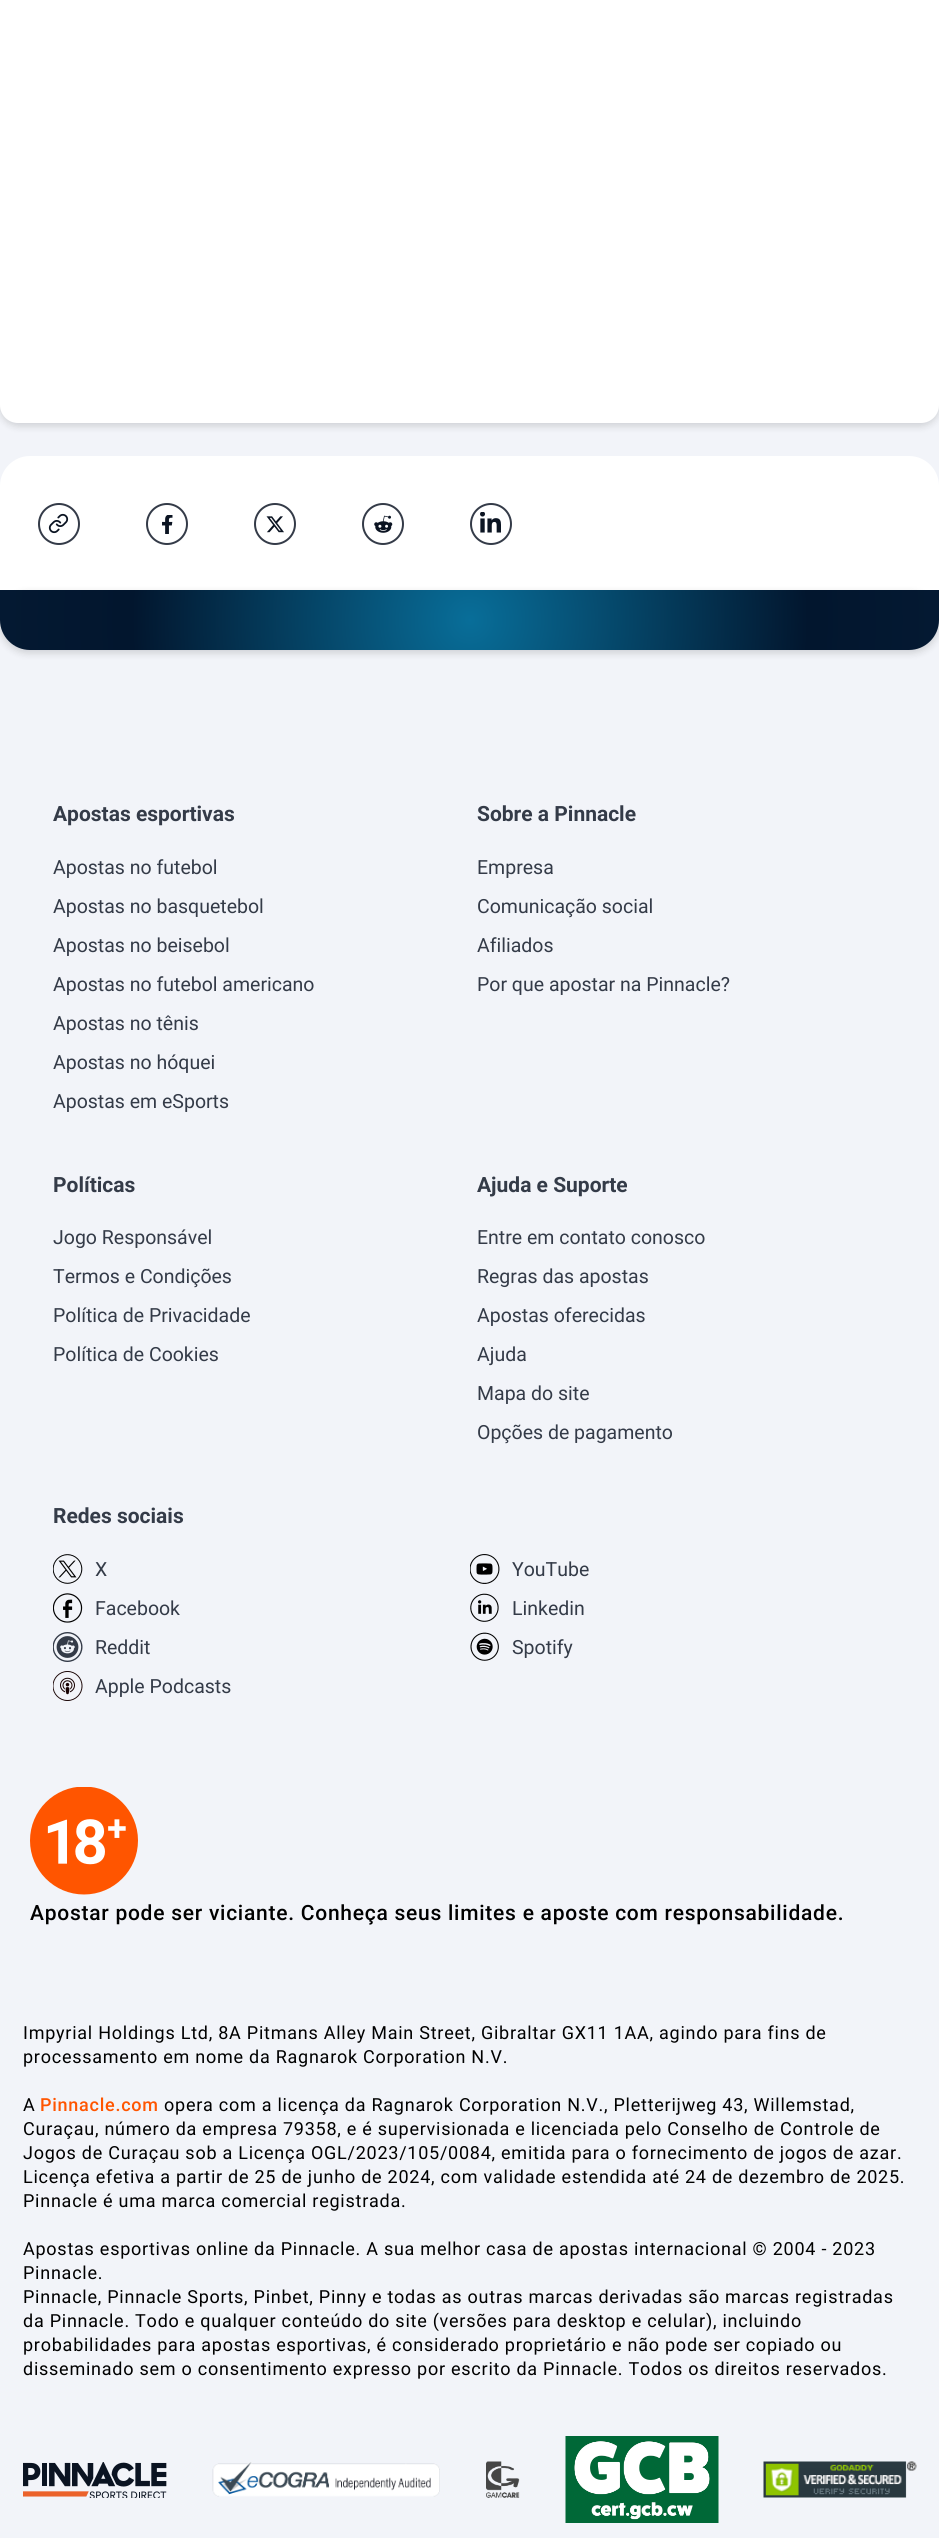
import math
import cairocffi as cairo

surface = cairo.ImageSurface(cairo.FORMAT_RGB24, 939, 2538)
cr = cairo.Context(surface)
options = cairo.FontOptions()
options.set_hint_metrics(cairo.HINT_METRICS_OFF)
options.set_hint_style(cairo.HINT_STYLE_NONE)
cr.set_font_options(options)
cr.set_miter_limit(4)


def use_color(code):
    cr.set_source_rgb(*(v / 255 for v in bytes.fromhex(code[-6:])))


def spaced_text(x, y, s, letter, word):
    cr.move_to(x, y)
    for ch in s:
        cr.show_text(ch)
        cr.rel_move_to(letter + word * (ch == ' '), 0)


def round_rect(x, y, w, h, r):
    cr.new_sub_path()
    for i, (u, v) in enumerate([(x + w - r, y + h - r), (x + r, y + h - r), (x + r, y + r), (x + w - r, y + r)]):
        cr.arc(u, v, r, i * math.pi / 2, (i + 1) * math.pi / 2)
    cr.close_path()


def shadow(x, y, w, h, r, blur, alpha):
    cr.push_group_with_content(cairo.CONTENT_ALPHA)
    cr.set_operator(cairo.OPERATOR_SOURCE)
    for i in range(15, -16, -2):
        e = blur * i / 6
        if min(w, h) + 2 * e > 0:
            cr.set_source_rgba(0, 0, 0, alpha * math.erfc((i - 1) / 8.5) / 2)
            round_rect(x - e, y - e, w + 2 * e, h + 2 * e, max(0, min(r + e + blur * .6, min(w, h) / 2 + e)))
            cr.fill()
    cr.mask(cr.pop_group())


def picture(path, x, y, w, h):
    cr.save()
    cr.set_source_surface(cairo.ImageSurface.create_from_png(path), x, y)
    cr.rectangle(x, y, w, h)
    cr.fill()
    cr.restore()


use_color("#f2f4f9")
cr.paint()
use_color("#000000")
shadow(0, -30, 939, 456, 18, 4, 0.15)
use_color("#ffffff")
round_rect(0, -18, 939, 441, 18)
cr.fill()
cr.new_path()
cr.move_to(30, 456)
cr.line_to(909, 456)
cr.curve_to(925.5, 456, 939, 469.5, 939, 486)
cr.line_to(939, 597)
cr.line_to(0, 597)
cr.line_to(0, 486)
cr.curve_to(0, 469.5, 13.5, 456, 30, 456)
cr.close_path()
cr.fill()
cr.arc(59, 524, 20, 0, 2 * math.pi)
use_color("#343b48")
cr.stroke()
picture("img1.png", 48, 513, 21, 21)
cr.arc(167, 524, 20, 0, 2 * math.pi)
cr.stroke()
picture("img2.png", 162, 515, 11, 19)
cr.arc(275, 524, 20, 0, 2 * math.pi)
cr.stroke()
picture("img3.png", 266, 516, 18, 17)
cr.arc(383, 524, 20, 0, 2 * math.pi)
cr.stroke()
picture("img4.png", 374, 515, 19, 18)
cr.arc(491, 524, 20, 0, 2 * math.pi)
cr.stroke()
picture("img5.png", 480, 512, 21, 21)
use_color("#000000")
shadow(0, 593, 939, 60, 30, 4, 0.15)
gradient = cairo.RadialGradient(470, 620, 0, 470, 620, 470)
gradient.add_color_stop_rgba(0, 0.031, 0.431, 0.6, 1)
gradient.add_color_stop_rgba(0.72, 0.008, 0.086, 0.18, 1)
gradient.add_color_stop_rgba(1, 0.016, 0.098, 0.196, 1)
cr.set_source(gradient)
cr.new_path()
cr.move_to(0, 590)
cr.line_to(939, 590)
cr.line_to(939, 620)
cr.curve_to(939, 636.5, 925.5, 650, 909, 650)
cr.line_to(30, 650)
cr.curve_to(13.5, 650, 0, 636.5, 0, 620)
cr.close_path()
cr.fill()
cr.select_font_face("Roboto", cairo.FONT_SLANT_NORMAL, cairo.FONT_WEIGHT_BOLD)
cr.set_font_size(21)
use_color("#343b48")
cr.move_to(53, 821)
cr.show_text("Apostas esportivas")
cr.select_font_face("Roboto")
cr.set_font_size(19.5)
cr.move_to(53, 874)
cr.show_text("Apostas no futebol")
cr.move_to(53, 913)
cr.show_text("Apostas no basquetebol")
cr.move_to(53, 952)
cr.show_text("Apostas no beisebol")
cr.move_to(53, 991)
cr.show_text("Apostas no futebol americano")
cr.move_to(53, 1030)
cr.show_text("Apostas no tênis")
cr.move_to(53, 1069)
cr.show_text("Apostas no hóquei")
cr.move_to(53, 1108)
cr.show_text("Apostas em eSports")
cr.select_font_face("Roboto", cairo.FONT_SLANT_NORMAL, cairo.FONT_WEIGHT_BOLD)
cr.set_font_size(21)
cr.move_to(477, 821)
cr.show_text("Sobre a Pinnacle")
cr.select_font_face("Roboto")
cr.set_font_size(19.5)
cr.move_to(477, 874)
cr.show_text("Empresa")
cr.move_to(477, 913)
cr.show_text("Comunicação social")
cr.move_to(477, 952)
cr.show_text("Afiliados")
cr.move_to(477, 991)
cr.show_text("Por que apostar na Pinnacle?")
cr.select_font_face("Roboto", cairo.FONT_SLANT_NORMAL, cairo.FONT_WEIGHT_BOLD)
cr.set_font_size(21)
cr.move_to(53, 1192)
cr.show_text("Políticas")
cr.select_font_face("Roboto")
cr.set_font_size(19.5)
cr.move_to(53, 1244)
cr.show_text("Jogo Responsável")
cr.move_to(53, 1283)
cr.show_text("Termos e Condições")
cr.move_to(53, 1322)
cr.show_text("Política de Privacidade")
cr.move_to(53, 1361)
cr.show_text("Política de Cookies")
cr.select_font_face("Roboto", cairo.FONT_SLANT_NORMAL, cairo.FONT_WEIGHT_BOLD)
cr.set_font_size(21)
cr.move_to(477, 1192)
cr.show_text("Ajuda e Suporte")
cr.select_font_face("Roboto")
cr.set_font_size(19.5)
cr.move_to(477, 1244)
cr.show_text("Entre em contato conosco")
cr.move_to(477, 1283)
cr.show_text("Regras das apostas")
cr.move_to(477, 1322)
cr.show_text("Apostas oferecidas")
cr.move_to(477, 1361)
cr.show_text("Ajuda")
cr.move_to(477, 1400)
cr.show_text("Mapa do site")
cr.move_to(477, 1439)
cr.show_text("Opções de pagamento")
cr.select_font_face("Roboto", cairo.FONT_SLANT_NORMAL, cairo.FONT_WEIGHT_BOLD)
cr.set_font_size(21)
cr.move_to(53, 1523)
cr.show_text("Redes sociais")
picture("img6.png", 53, 1554, 30, 30)
cr.select_font_face("Roboto")
cr.set_font_size(19.5)
cr.move_to(95, 1576)
cr.show_text("X")
picture("img7.png", 470, 1554, 30, 30)
cr.move_to(512, 1576)
cr.show_text("YouTube")
picture("img8.png", 53, 1593, 30, 30)
cr.move_to(95, 1615)
cr.show_text("Facebook")
picture("img9.png", 470, 1593, 29, 29)
cr.move_to(512, 1615)
cr.show_text("Linkedin")
picture("img10.png", 53, 1632, 30, 30)
cr.move_to(95, 1654)
cr.show_text("Reddit")
picture("img11.png", 470, 1632, 29, 29)
cr.move_to(512, 1654)
cr.show_text("Spotify")
picture("img12.png", 53, 1671, 30, 30)
cr.move_to(95, 1693)
cr.show_text("Apple Podcasts")
picture("img13.png", 30, 1787, 108, 108)
cr.select_font_face("Roboto Medium")
cr.set_font_size(21)
use_color("#000000")
spaced_text(30, 1920, "Apostar pode ser viciante. Conheça seus limites e aposte com responsabilidade.", 0.75, 0)
cr.select_font_face("Roboto")
cr.set_font_size(18)
spaced_text(23, 2039, "Impyrial Holdings Ltd, 8A Pitmans Alley Main Street, Gibraltar GX11 1AA, agindo para fins de", 0.75, 0)
spaced_text(23, 2063, "processamento em nome da Ragnarok Corporation N.V.", 0.75, 0)
spaced_text(23, 2111, "A", 0.75, 0)
cr.select_font_face("Roboto Medium")
use_color("#ff5500")
spaced_text(40, 2111, "Pinnacle.com", 0.75, 0)
cr.select_font_face("Roboto")
use_color("#000000")
spaced_text(164, 2111, "opera com a licença da Ragnarok Corporation N.V., Pletterijweg 43, Willemstad,", 0.75, 0)
spaced_text(23, 2135, "Curaçau, número da empresa 79358, e é supervisionada e licenciada pelo Conselho de Controle de", 0.75, 0)
spaced_text(23, 2159, "Jogos de Curaçau sob a Licença OGL/2023/105/0084, emitida para o fornecimento de jogos de azar.", 0.75, 0)
spaced_text(23, 2183, "Licença efetiva a partir de 25 de junho de 2024, com validade estendida até 24 de dezembro de 2025.", 0.75, 0)
spaced_text(23, 2207, "Pinnacle é uma marca comercial registrada.", 0.75, 0)
spaced_text(23, 2255, "Apostas esportivas online da Pinnacle. A sua melhor casa de apostas internacional © 2004 - 2023", 0.75, 0)
spaced_text(23, 2279, "Pinnacle.", 0.75, 0)
spaced_text(23, 2303, "Pinnacle, Pinnacle Sports, Pinbet, Pinny e todas as outras marcas derivadas são marcas registradas", 0.75, 0)
spaced_text(23, 2327, "da Pinnacle. Todo e qualquer conteúdo do site (versões para desktop e celular), incluindo", 0.75, 0)
spaced_text(23, 2351, "probabilidades para apostas esportivas, é considerado proprietário e não pode ser copiado ou", 0.75, 0)
spaced_text(23, 2375, "disseminado sem o consentimento expresso por escrito da Pinnacle. Todos os direitos reservados.", 0.75, 0)
picture("img14.png", 23, 2462, 144, 36)
picture("img15.png", 212, 2462, 228, 35)
picture("img16.png", 486, 2461, 34, 37)
picture("img17.png", 565, 2436, 154, 87)
picture("img18.png", 763, 2461, 154, 37)
surface.write_to_png("result.png")
